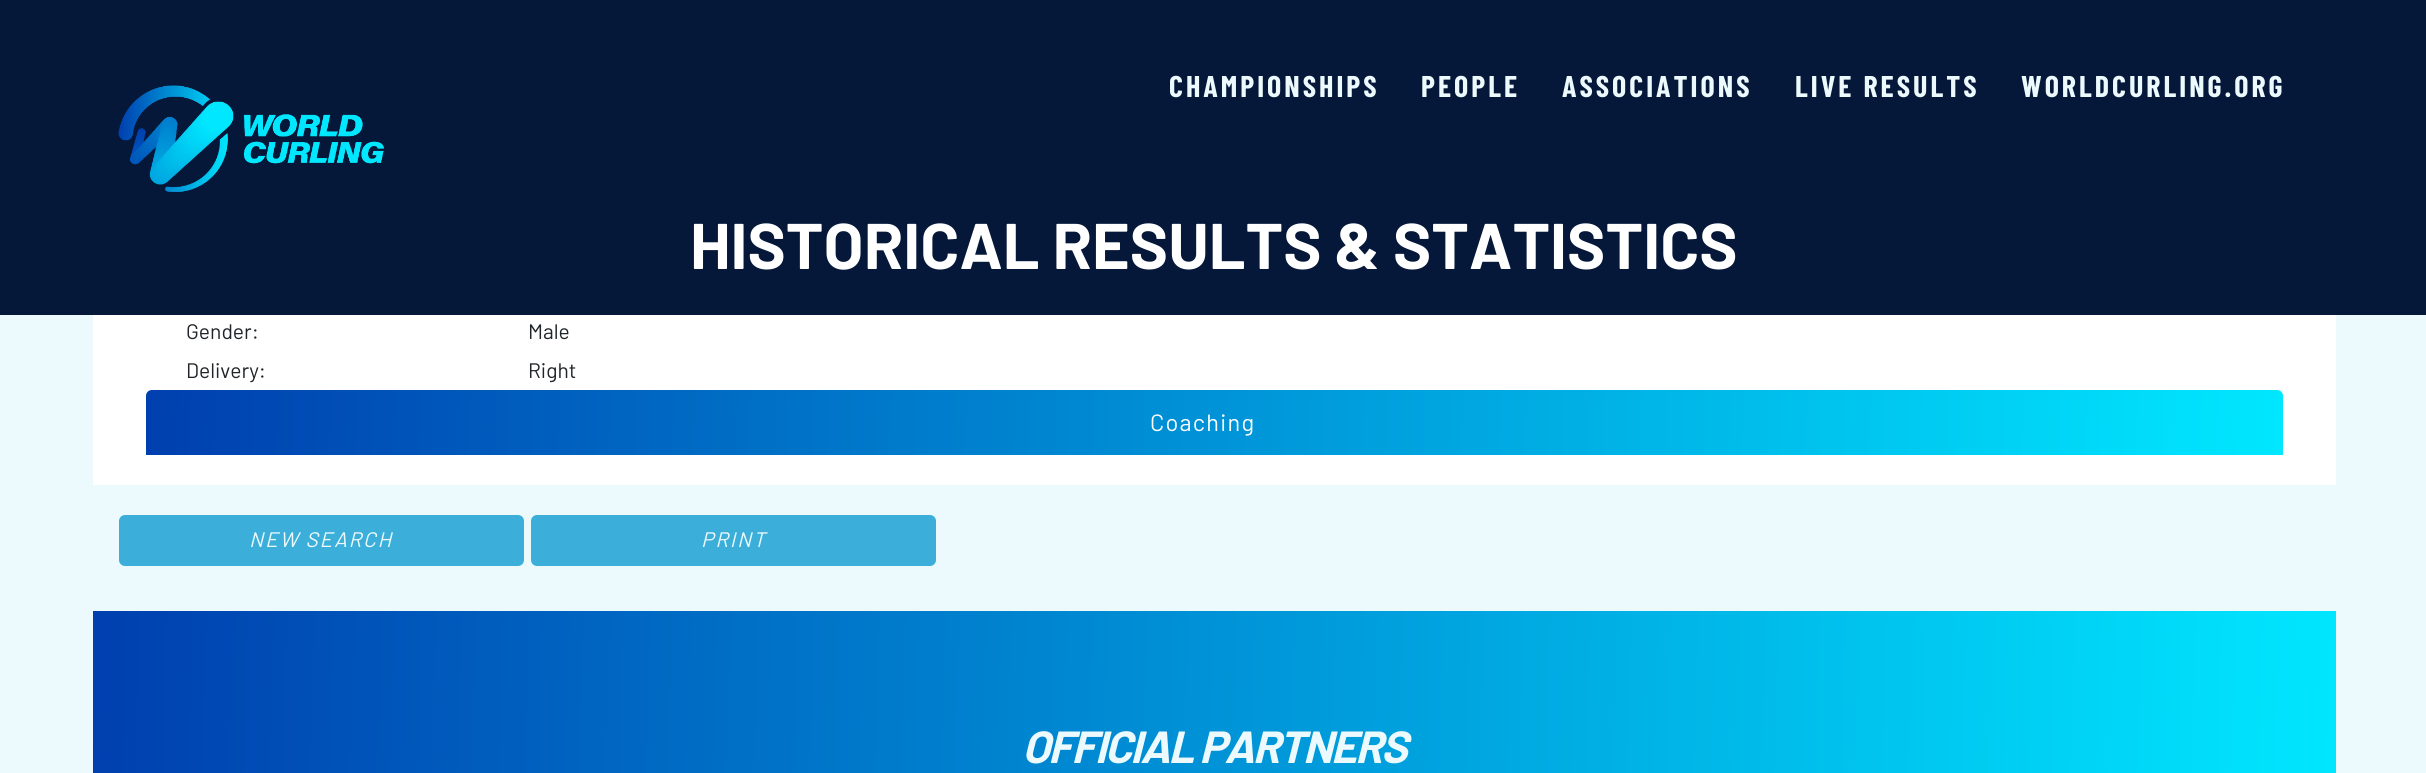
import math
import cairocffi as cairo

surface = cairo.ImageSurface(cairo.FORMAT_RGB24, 2426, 773)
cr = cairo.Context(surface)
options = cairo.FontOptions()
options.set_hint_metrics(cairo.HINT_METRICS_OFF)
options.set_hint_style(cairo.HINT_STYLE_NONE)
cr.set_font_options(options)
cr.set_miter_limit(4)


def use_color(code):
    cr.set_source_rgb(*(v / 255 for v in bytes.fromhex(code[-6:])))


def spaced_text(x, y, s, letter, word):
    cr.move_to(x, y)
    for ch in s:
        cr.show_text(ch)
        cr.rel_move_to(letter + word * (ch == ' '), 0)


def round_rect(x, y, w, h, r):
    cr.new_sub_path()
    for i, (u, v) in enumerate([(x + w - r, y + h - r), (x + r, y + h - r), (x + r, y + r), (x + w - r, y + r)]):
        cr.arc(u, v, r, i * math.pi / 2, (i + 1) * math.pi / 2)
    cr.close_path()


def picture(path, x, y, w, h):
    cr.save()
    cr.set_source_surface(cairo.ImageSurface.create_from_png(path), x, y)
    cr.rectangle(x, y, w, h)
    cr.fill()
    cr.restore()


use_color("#ecfafe")
cr.paint()
use_color("#051839")
cr.rectangle(0, 0, 2426, 315)
cr.fill()
picture("img1.png", 118, 85, 266, 107)
cr.select_font_face("Barlow Condensed", cairo.FONT_SLANT_NORMAL, cairo.FONT_WEIGHT_BOLD)
cr.set_font_size(30)
use_color("#ecfafe")
spaced_text(1169, 97, "CHAMPIONSHIPS", 3, 0)
spaced_text(1421, 97, "PEOPLE", 3, 0)
spaced_text(1562, 97, "ASSOCIATIONS", 3, 0)
spaced_text(1795, 97, "LIVE RESULTS", 3, 0)
spaced_text(2021, 97, "WORLDCURLING.ORG", 3, 0)
cr.select_font_face("Barlow", cairo.FONT_SLANT_NORMAL, cairo.FONT_WEIGHT_BOLD)
cr.set_font_size(64.5)
use_color("#ffffff")
cr.move_to(690, 269)
cr.show_text("HISTORICAL RESULTS & STATISTICS")
cr.rectangle(93, 315, 2243, 170)
cr.fill()
cr.select_font_face("Barlow")
cr.set_font_size(21)
use_color("#212529")
cr.move_to(186, 339)
cr.show_text("Gender:")
cr.move_to(528, 339)
cr.show_text("Male")
cr.move_to(186, 378)
cr.show_text("Delivery:")
cr.move_to(528, 378)
cr.show_text("Right")
gradient = cairo.LinearGradient(146, 389, 2283, 456)
gradient.add_color_stop_rgba(0, 0, 0.247, 0.686, 1)
gradient.add_color_stop_rgba(1, 0, 0.906, 1, 1)
cr.set_source(gradient)
cr.new_path()
cr.move_to(152, 390)
cr.line_to(2277, 390)
cr.curve_to(2280.5, 390, 2283, 392.5, 2283, 396)
cr.line_to(2283, 455)
cr.line_to(146, 455)
cr.line_to(146, 396)
cr.curve_to(146, 392.5, 148.5, 390, 152, 390)
cr.close_path()
cr.fill()
cr.set_font_size(23.5)
use_color("#ffffff")
spaced_text(1150, 431, "Coaching", 1.25, 0)
use_color("#3bafda")
round_rect(120, 516, 403, 49, 5)
cr.fill_preserve()
cr.stroke()
cr.select_font_face("Barlow", cairo.FONT_SLANT_ITALIC)
cr.set_font_size(21)
use_color("#ecfafe")
spaced_text(249, 547, "NEW SEARCH", 1.75, 0)
use_color("#3bafda")
round_rect(532, 516, 403, 49, 5)
cr.fill_preserve()
cr.stroke()
use_color("#ecfafe")
spaced_text(701, 547, "PRINT", 1.75, 0)
gradient = cairo.LinearGradient(86, 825, 2342, 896)
gradient.add_color_stop_rgba(0, 0, 0.247, 0.686, 1)
gradient.add_color_stop_rgba(1, 0, 0.906, 1, 1)
cr.set_source(gradient)
cr.rectangle(93, 611, 2243, 162)
cr.fill()
cr.select_font_face("Barlow", cairo.FONT_SLANT_ITALIC, cairo.FONT_WEIGHT_BOLD)
cr.set_font_size(45)
use_color("#ecfafe")
spaced_text(1022, 763, "OFFICIAL PARTNERS", -1.9, 0)
surface.write_to_png("result.png")
